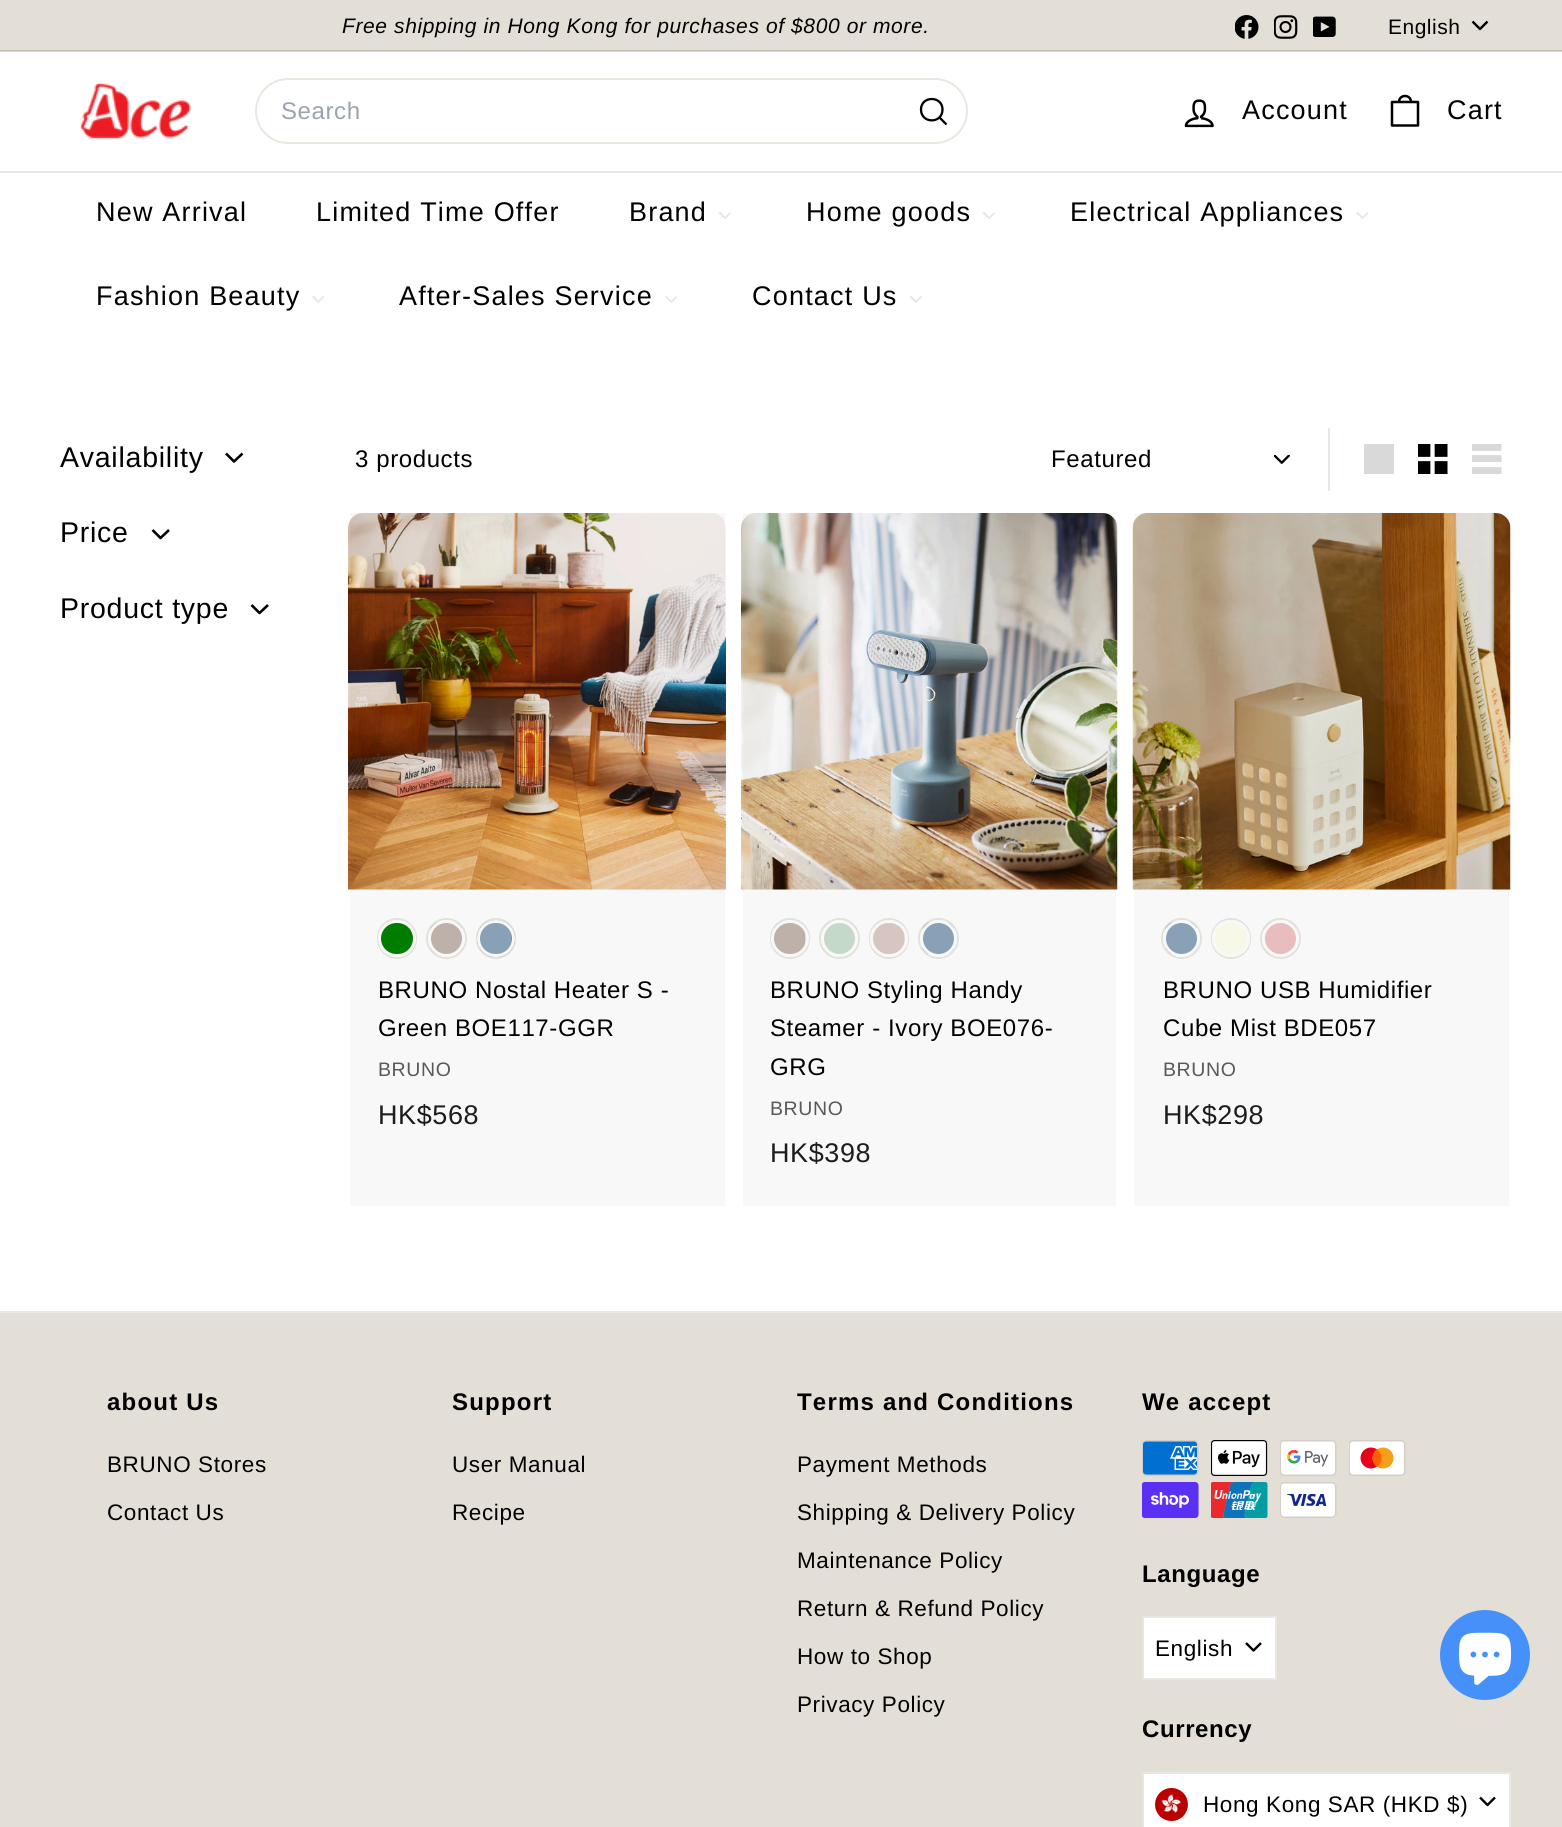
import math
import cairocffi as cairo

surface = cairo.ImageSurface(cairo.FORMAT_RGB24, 1562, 1827)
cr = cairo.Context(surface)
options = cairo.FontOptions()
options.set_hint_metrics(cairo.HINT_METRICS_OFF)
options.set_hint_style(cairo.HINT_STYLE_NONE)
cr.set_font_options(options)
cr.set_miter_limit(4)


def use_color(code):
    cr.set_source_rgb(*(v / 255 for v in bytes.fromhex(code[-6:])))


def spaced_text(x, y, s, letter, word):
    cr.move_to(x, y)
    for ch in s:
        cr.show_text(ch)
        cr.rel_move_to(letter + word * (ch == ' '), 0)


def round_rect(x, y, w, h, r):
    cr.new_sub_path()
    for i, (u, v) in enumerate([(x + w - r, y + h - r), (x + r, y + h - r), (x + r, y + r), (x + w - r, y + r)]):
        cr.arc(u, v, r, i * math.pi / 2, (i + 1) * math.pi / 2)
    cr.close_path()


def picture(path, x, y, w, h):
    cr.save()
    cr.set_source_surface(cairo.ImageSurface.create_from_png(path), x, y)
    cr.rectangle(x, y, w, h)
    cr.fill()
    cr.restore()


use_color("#ffffff")
cr.paint()
use_color("#d9d9d9")
cr.rectangle(0, 51, 1562, 1)
cr.fill()
use_color("#e3dfd7")
cr.rectangle(0, 0, 1562, 50)
cr.fill()
use_color("#c1beb7")
cr.rectangle(0, 50, 1562, 1)
cr.fill()
cr.select_font_face("Liberation Sans", cairo.FONT_SLANT_ITALIC)
cr.set_font_size(21)
use_color("#000000")
spaced_text(342, 33, "Free shipping in Hong Kong for purchases of $800 or more.", 0.6, 0)
picture("img1.png", 1235, 15, 24, 24)
picture("img2.png", 1274, 15, 24, 24)
picture("img3.png", 1313, 16, 23, 21)
cr.select_font_face("Liberation Sans")
spaced_text(1388, 34, "English", 0.5, 0)
cr.new_path()
cr.move_to(1472.5, 21.5)
cr.line_to(1480, 29)
cr.line_to(1487.5, 21.5)
cr.set_line_width(2.4)
cr.set_line_join(cairo.LINE_JOIN_ROUND)
cr.stroke()
picture("img4.png", 80, 83, 111, 56)
round_rect(256, 79, 711, 64, 32)
use_color("#e8e8e1")
cr.set_line_width(2)
cr.set_line_join(cairo.LINE_JOIN_MITER)
cr.stroke()
cr.set_font_size(24)
use_color("#9ca3af")
spaced_text(281, 119, "Search", 0.6, 0)
cr.new_path()
cr.move_to(942.5, 109.5)
cr.curve_to(942.5, 124, 921, 124, 921, 109.5)
cr.curve_to(921, 95.5, 942.5, 95.5, 942.5, 109.5)
cr.move_to(946.5, 124.5)
cr.line_to(939.5, 117.5)
use_color("#000000")
cr.set_line_width(2.3)
cr.set_line_join(cairo.LINE_JOIN_ROUND)
cr.stroke()
picture("img5.png", 1184, 99, 30, 29)
cr.set_font_size(27)
spaced_text(1242, 119, "Account", 1.2, 0)
cr.new_path()
cr.move_to(1399, 102)
cr.curve_to(1399, 94, 1411, 94, 1411, 102)
cr.move_to(1392, 102)
cr.line_to(1418, 102)
cr.line_to(1418, 125.5)
cr.line_to(1392, 125.5)
cr.close_path()
cr.set_line_width(2.5)
cr.stroke()
spaced_text(1447, 119, "Cart", 1.2, 0)
use_color("#e6e6e6")
cr.rectangle(0, 171, 1562, 2)
cr.fill()
use_color("#000000")
spaced_text(96, 221, "New Arrival", 1.2, 0)
spaced_text(316, 221, "Limited Time Offer", 1.2, 0)
spaced_text(629, 221, "Brand", 1.2, 0)
use_color("#e5e7eb")
cr.new_path()
cr.move_to(729.5, 212)
cr.line_to(731, 213.5)
cr.line_to(725.5, 219)
cr.line_to(724, 218)
cr.close_path()
cr.fill()
cr.new_path()
cr.move_to(720, 211.5)
cr.line_to(726, 218)
cr.line_to(724.5, 219)
cr.line_to(718.5, 213)
cr.close_path()
cr.fill()
use_color("#000000")
spaced_text(806, 221, "Home goods", 1.2, 0)
use_color("#e5e7eb")
cr.new_path()
cr.move_to(994, 212)
cr.line_to(995, 213.5)
cr.line_to(989.5, 219)
cr.line_to(988, 218)
cr.close_path()
cr.fill()
cr.new_path()
cr.move_to(984, 211.5)
cr.line_to(990, 218)
cr.line_to(988.5, 219)
cr.line_to(982.5, 213)
cr.close_path()
cr.fill()
use_color("#000000")
spaced_text(1070, 221, "Electrical Appliances", 1.2, 0)
use_color("#e5e7eb")
cr.new_path()
cr.move_to(1367, 212)
cr.line_to(1368.5, 213.5)
cr.line_to(1362.5, 219)
cr.line_to(1361.5, 218)
cr.close_path()
cr.fill()
cr.new_path()
cr.move_to(1357.5, 211.5)
cr.line_to(1363.5, 218)
cr.line_to(1362, 219)
cr.line_to(1356, 213)
cr.close_path()
cr.fill()
use_color("#000000")
spaced_text(96, 305, "Fashion Beauty", 1.2, 0)
use_color("#e5e7eb")
cr.new_path()
cr.move_to(323, 296)
cr.line_to(324.5, 297)
cr.line_to(318.5, 303)
cr.line_to(317.5, 301.5)
cr.close_path()
cr.fill()
cr.new_path()
cr.move_to(313.5, 295.5)
cr.line_to(319.5, 301.5)
cr.line_to(318, 303)
cr.line_to(312, 297)
cr.close_path()
cr.fill()
use_color("#000000")
spaced_text(399, 305, "After-Sales Service", 1.2, 0)
use_color("#e5e7eb")
cr.new_path()
cr.move_to(676, 296)
cr.line_to(677.5, 297)
cr.line_to(671.5, 303)
cr.line_to(670.5, 301.5)
cr.close_path()
cr.fill()
cr.new_path()
cr.move_to(666, 295.5)
cr.line_to(672.5, 301.5)
cr.line_to(671, 303)
cr.line_to(665, 297)
cr.close_path()
cr.fill()
use_color("#000000")
spaced_text(752, 305, "Contact Us", 1.2, 0)
use_color("#e5e7eb")
cr.new_path()
cr.move_to(920.5, 296)
cr.line_to(922, 297)
cr.line_to(916, 303)
cr.line_to(915, 301.5)
cr.close_path()
cr.fill()
cr.new_path()
cr.move_to(911, 295.5)
cr.line_to(917, 301.5)
cr.line_to(915.5, 303)
cr.line_to(909.5, 297)
cr.close_path()
cr.fill()
cr.set_font_size(28.5)
use_color("#000000")
spaced_text(60, 467, "Availability", 0.75, 0)
cr.new_path()
cr.move_to(226, 453.5)
cr.line_to(234, 461.5)
cr.line_to(242.5, 453.5)
cr.set_line_width(2.6)
cr.stroke()
spaced_text(60, 542, "Price", 0.75, 0)
cr.new_path()
cr.move_to(152.5, 530)
cr.line_to(160.5, 538)
cr.line_to(169, 530)
cr.stroke()
spaced_text(60, 618, "Product type", 0.75, 0)
cr.new_path()
cr.move_to(251.5, 605)
cr.line_to(259.5, 613)
cr.line_to(268, 605)
cr.stroke()
cr.set_font_size(24)
spaced_text(355, 467, "3 products", 0.6, 0)
use_color("#e8e8e1")
cr.rectangle(1328, 428, 2, 63)
cr.fill()
picture("img6.png", 1274, 455, 16, 9)
use_color("#000000")
spaced_text(1051, 467, "Featured", 0.6, 0)
use_color("#d9d9d9")
cr.rectangle(1364, 444, 30, 30)
cr.fill()
picture("img7.png", 1418, 444, 30, 30)
picture("img8.png", 1472, 444, 30, 30)
picture("img9.png", 348, 513, 378, 377)
round_rect(378, 919, 38, 39, 19)
use_color("#e8e8e1")
cr.set_line_width(2)
cr.set_line_join(cairo.LINE_JOIN_MITER)
cr.stroke()
use_color("#008000")
round_rect(379.5, 921.5, 35, 34, 17)
cr.fill_preserve()
use_color("#ffffff")
cr.set_line_width(3)
cr.stroke()
cr.arc(446.5, 938.5, 19.5, 0, 2 * math.pi)
use_color("#e8e8e1")
cr.set_line_width(2)
cr.stroke()
picture("img10.png", 430, 922, 32, 32)
cr.arc(446.5, 938.5, 17, 0, 2 * math.pi)
use_color("#ffffff")
cr.set_line_width(3)
cr.stroke()
round_rect(477, 919, 38, 39, 19)
use_color("#e8e8e1")
cr.set_line_width(2)
cr.stroke()
use_color("#808080")
round_rect(477, 920, 38, 37, 18.5)
cr.fill()
picture("img11.png", 480, 922, 32, 32)
round_rect(478.5, 921.5, 35, 34, 17)
use_color("#ffffff")
cr.set_line_width(3)
cr.stroke()
cr.set_source_rgba(0, 0, 0, 0.03)
cr.rectangle(350, 513, 375, 693)
cr.fill()
cr.new_path()
cr.move_to(721.5, 531.5)
cr.curve_to(721.5, 544.5, 701.5, 544.5, 701.5, 531.5)
cr.curve_to(701.5, 518.5, 721.5, 518.5, 721.5, 531.5)
cr.move_to(725, 545)
cr.line_to(718.5, 538.5)
use_color("#efe9e7")
cr.set_line_width(2.2)
cr.set_line_join(cairo.LINE_JOIN_ROUND)
cr.stroke()
use_color("#000000")
spaced_text(378, 998, "BRUNO Nostal Heater S -", 0.6, 0)
spaced_text(378, 1036, "Green BOE117-GGR", 0.6, 0)
cr.set_font_size(19.5)
use_color("#595959")
spaced_text(378, 1076, "BRUNO", 0.6, 0)
cr.set_font_size(27)
use_color("#1c1d1d")
spaced_text(378, 1124, "HK$568", 0.6, 0)
picture("img12.png", 741, 513, 377, 377)
round_rect(771, 919, 38, 39, 19)
use_color("#e8e8e1")
cr.set_line_width(2)
cr.set_line_join(cairo.LINE_JOIN_MITER)
cr.stroke()
picture("img13.png", 774, 922, 32, 32)
round_rect(772.5, 921.5, 35, 34, 17)
use_color("#ffffff")
cr.set_line_width(3)
cr.stroke()
cr.arc(839.5, 938.5, 19.5, 0, 2 * math.pi)
use_color("#e8e8e1")
cr.set_line_width(2)
cr.stroke()
picture("img14.png", 823, 922, 32, 32)
cr.arc(839.5, 938.5, 17, 0, 2 * math.pi)
use_color("#ffffff")
cr.set_line_width(3)
cr.stroke()
round_rect(870, 919, 38, 39, 19)
use_color("#e8e8e1")
cr.set_line_width(2)
cr.stroke()
use_color("#f5f5dc")
round_rect(870, 920, 38, 37, 18.5)
cr.fill()
picture("img15.png", 873, 922, 32, 32)
round_rect(871.5, 921.5, 35, 34, 17)
use_color("#ffffff")
cr.set_line_width(3)
cr.stroke()
cr.arc(938.5, 938.5, 19.5, 0, 2 * math.pi)
use_color("#e8e8e1")
cr.set_line_width(2)
cr.stroke()
picture("img16.png", 922, 922, 32, 32)
cr.arc(938.5, 938.5, 17, 0, 2 * math.pi)
use_color("#ffffff")
cr.set_line_width(3)
cr.stroke()
cr.set_source_rgba(0, 0, 0, 0.03)
cr.rectangle(743, 513, 373, 693)
cr.fill()
cr.set_font_size(24)
use_color("#000000")
spaced_text(770, 998, "BRUNO Styling Handy", 0.6, 0)
spaced_text(770, 1036, "Steamer - Ivory BOE076-", 0.6, 0)
spaced_text(770, 1075, "GRG", 0.6, 0)
cr.set_font_size(19.5)
use_color("#595959")
spaced_text(770, 1115, "BRUNO", 0.6, 0)
cr.set_font_size(27)
use_color("#1c1d1d")
spaced_text(770, 1162, "HK$398", 0.6, 0)
picture("img17.png", 1132, 513, 379, 377)
cr.arc(1181.5, 938.5, 19.5, 0, 2 * math.pi)
use_color("#e8e8e1")
cr.set_line_width(2)
cr.stroke()
picture("img16.png", 1165, 922, 32, 32)
cr.arc(1181.5, 938.5, 17, 0, 2 * math.pi)
use_color("#ffffff")
cr.set_line_width(3)
cr.stroke()
round_rect(1212, 919, 38, 39, 19)
use_color("#e8e8e1")
cr.set_line_width(2)
cr.stroke()
use_color("#fffff0")
round_rect(1212, 920, 38, 37, 18.5)
cr.fill()
picture("img18.png", 1215, 923, 5, 27)
round_rect(1213.5, 921.5, 35, 34, 17)
use_color("#ffffff")
cr.set_line_width(3)
cr.stroke()
cr.arc(1280.5, 938.5, 19.5, 0, 2 * math.pi)
use_color("#e8e8e1")
cr.set_line_width(2)
cr.stroke()
picture("img19.png", 1264, 922, 32, 32)
cr.arc(1280.5, 938.5, 17, 0, 2 * math.pi)
use_color("#ffffff")
cr.set_line_width(3)
cr.stroke()
cr.set_source_rgba(0, 0, 0, 0.03)
cr.rectangle(1134, 513, 375, 693)
cr.fill()
cr.set_font_size(24)
use_color("#000000")
spaced_text(1163, 998, "BRUNO USB Humidifier", 0.6, 0)
spaced_text(1163, 1036, "Cube Mist BDE057", 0.6, 0)
cr.set_font_size(19.5)
use_color("#595959")
spaced_text(1163, 1076, "BRUNO", 0.6, 0)
cr.set_font_size(27)
use_color("#1c1d1d")
spaced_text(1163, 1124, "HK$298", 0.6, 0)
use_color("#e3dfd7")
cr.rectangle(0, 1313, 1562, 514)
cr.fill()
use_color("#e8e8e1")
cr.rectangle(0, 1311, 1562, 2)
cr.fill()
cr.select_font_face("Liberation Sans", cairo.FONT_SLANT_NORMAL, cairo.FONT_WEIGHT_BOLD)
cr.set_font_size(24)
use_color("#000000")
spaced_text(107, 1410, "about Us", 1.2, 0)
cr.select_font_face("Liberation Sans")
cr.set_font_size(22.5)
spaced_text(107, 1472, "BRUNO Stores", 0.6, 0)
spaced_text(107, 1520, "Contact Us", 0.6, 0)
cr.select_font_face("Liberation Sans", cairo.FONT_SLANT_NORMAL, cairo.FONT_WEIGHT_BOLD)
cr.set_font_size(24)
spaced_text(452, 1410, "Support", 1.2, 0)
cr.select_font_face("Liberation Sans")
cr.set_font_size(22.5)
spaced_text(452, 1472, "User Manual", 0.6, 0)
spaced_text(452, 1520, "Recipe", 0.6, 0)
cr.select_font_face("Liberation Sans", cairo.FONT_SLANT_NORMAL, cairo.FONT_WEIGHT_BOLD)
cr.set_font_size(24)
spaced_text(797, 1410, "Terms and Conditions", 1.2, 0)
cr.select_font_face("Liberation Sans")
cr.set_font_size(22.5)
spaced_text(797, 1472, "Payment Methods", 0.6, 0)
spaced_text(797, 1520, "Shipping & Delivery Policy", 0.6, 0)
spaced_text(797, 1568, "Maintenance Policy", 0.6, 0)
spaced_text(797, 1616, "Return & Refund Policy", 0.6, 0)
spaced_text(797, 1664, "How to Shop", 0.6, 0)
spaced_text(797, 1712, "Privacy Policy", 0.6, 0)
cr.select_font_face("Liberation Sans", cairo.FONT_SLANT_NORMAL, cairo.FONT_WEIGHT_BOLD)
cr.set_font_size(24)
spaced_text(1142, 1410, "We accept", 1.2, 0)
picture("img20.png", 1142, 1440, 57, 36)
picture("img21.png", 1211, 1440, 57, 36)
picture("img22.png", 1280, 1440, 57, 36)
picture("img23.png", 1349, 1440, 57, 36)
picture("img24.png", 1142, 1482, 57, 36)
picture("img25.png", 1211, 1482, 57, 36)
picture("img26.png", 1280, 1482, 57, 36)
spaced_text(1142, 1582, "Language", 0.6, 0)
use_color("#ffffff")
cr.rectangle(1143, 1617, 133, 62)
cr.fill_preserve()
use_color("#e8e8e1")
cr.set_line_width(2)
cr.stroke()
cr.select_font_face("Liberation Sans")
cr.set_font_size(22.5)
use_color("#000000")
spaced_text(1155, 1656, "English", 0.6, 0)
cr.new_path()
cr.move_to(1246, 1643)
cr.line_to(1253.5, 1650.5)
cr.line_to(1261, 1643)
cr.set_line_width(2.4)
cr.set_line_join(cairo.LINE_JOIN_ROUND)
cr.stroke()
cr.select_font_face("Liberation Sans", cairo.FONT_SLANT_NORMAL, cairo.FONT_WEIGHT_BOLD)
cr.set_font_size(24)
spaced_text(1142, 1737, "Currency", 0.6, 0)
use_color("#ffffff")
cr.rectangle(1143, 1773, 367, 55)
cr.fill_preserve()
use_color("#e8e8e1")
cr.set_line_width(2)
cr.set_line_join(cairo.LINE_JOIN_MITER)
cr.stroke()
picture("img27.png", 1155, 1788, 33, 33)
cr.select_font_face("Liberation Sans")
cr.set_font_size(22.5)
use_color("#000000")
spaced_text(1203, 1812, "Hong Kong SAR (HKD $)", 0.6, 0)
cr.new_path()
cr.move_to(1480, 1797.5)
cr.line_to(1487.5, 1805)
cr.line_to(1495, 1797.5)
cr.set_line_width(2.4)
cr.set_line_join(cairo.LINE_JOIN_ROUND)
cr.stroke()
use_color("#4691f9")
cr.arc(1485, 1655, 45, 0, 2 * math.pi)
cr.fill()
picture("img28.png", 1458, 1632, 54, 53)
surface.write_to_png("result.png")
